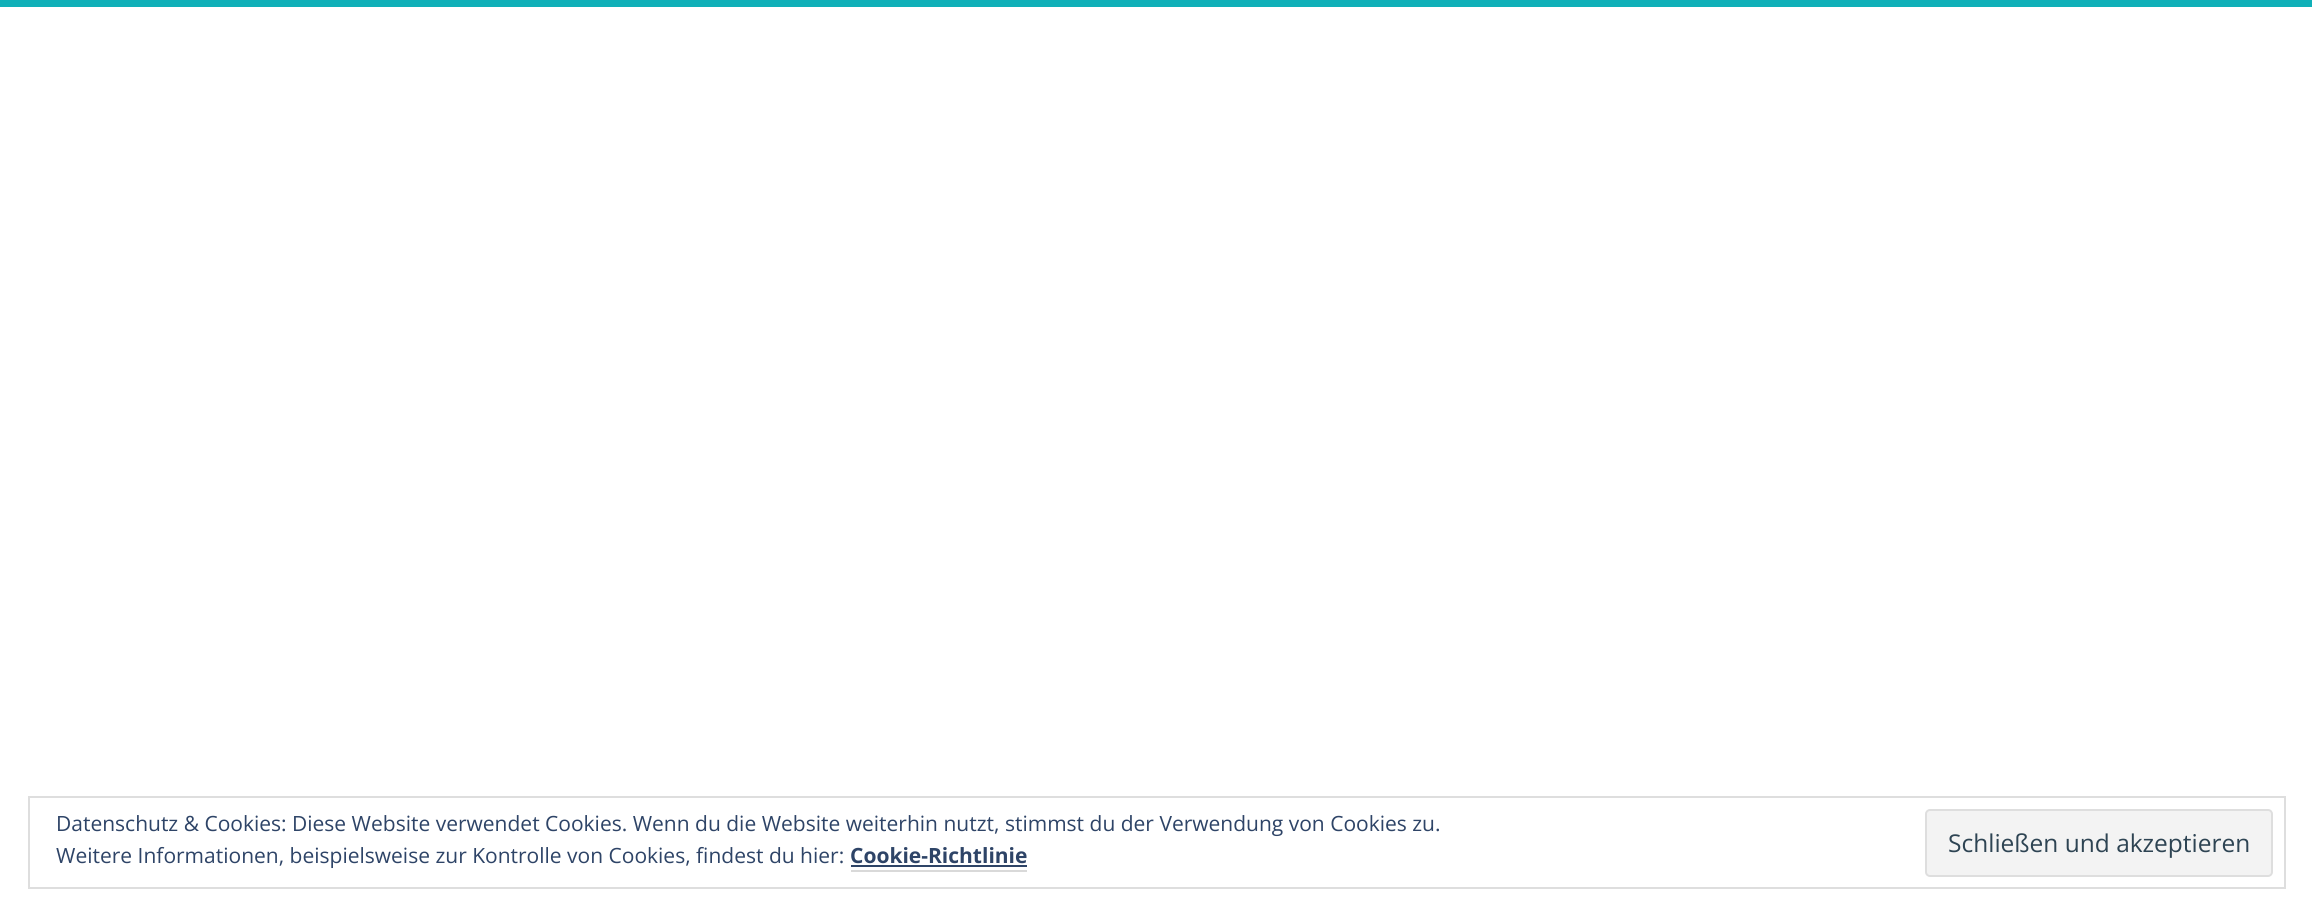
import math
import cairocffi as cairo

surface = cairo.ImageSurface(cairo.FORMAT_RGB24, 2312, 917)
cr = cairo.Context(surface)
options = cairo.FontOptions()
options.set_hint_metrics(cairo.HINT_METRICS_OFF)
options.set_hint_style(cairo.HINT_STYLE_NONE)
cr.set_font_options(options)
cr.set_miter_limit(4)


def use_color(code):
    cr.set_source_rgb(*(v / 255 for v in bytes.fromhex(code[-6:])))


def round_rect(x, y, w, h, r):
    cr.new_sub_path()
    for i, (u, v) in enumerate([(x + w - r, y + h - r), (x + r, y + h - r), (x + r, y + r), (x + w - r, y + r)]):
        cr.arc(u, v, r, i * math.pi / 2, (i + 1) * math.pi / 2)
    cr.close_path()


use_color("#ffffff")
cr.paint()
use_color("#10b0b8")
cr.rectangle(0, 0, 2312, 7)
cr.fill()
cr.rectangle(29, 797, 2256, 91)
use_color("#dedede")
cr.stroke()
cr.select_font_face("Open Sans")
cr.set_font_size(21)
use_color("#2e4467")
cr.move_to(56, 831)
cr.show_text("Datenschutz & Cookies: Diese Website verwendet Cookies. Wenn du die Website weiterhin nutzt, stimmst du der Verwendung von Cookies zu.")
cr.move_to(56, 863)
cr.show_text("Weitere Informationen, beispielsweise zur Kontrolle von Cookies, findest du hier:")
cr.select_font_face("Open Sans", cairo.FONT_SLANT_NORMAL, cairo.FONT_WEIGHT_BOLD)
cr.move_to(850, 863)
cr.show_text("Cookie-Richtlinie")
use_color("#d9d9d9")
cr.rectangle(851, 870, 176, 2)
cr.fill()
use_color("#2e4467")
cr.rectangle(851, 865, 176, 2)
cr.fill()
use_color("#f3f3f3")
round_rect(1926, 810, 346, 66, 4)
cr.fill_preserve()
use_color("#dedede")
cr.stroke()
cr.select_font_face("Open Sans")
cr.set_font_size(24.5)
use_color("#2e4453")
cr.move_to(1948, 852)
cr.show_text("Schließen und akzeptieren")
surface.write_to_png("result.png")
